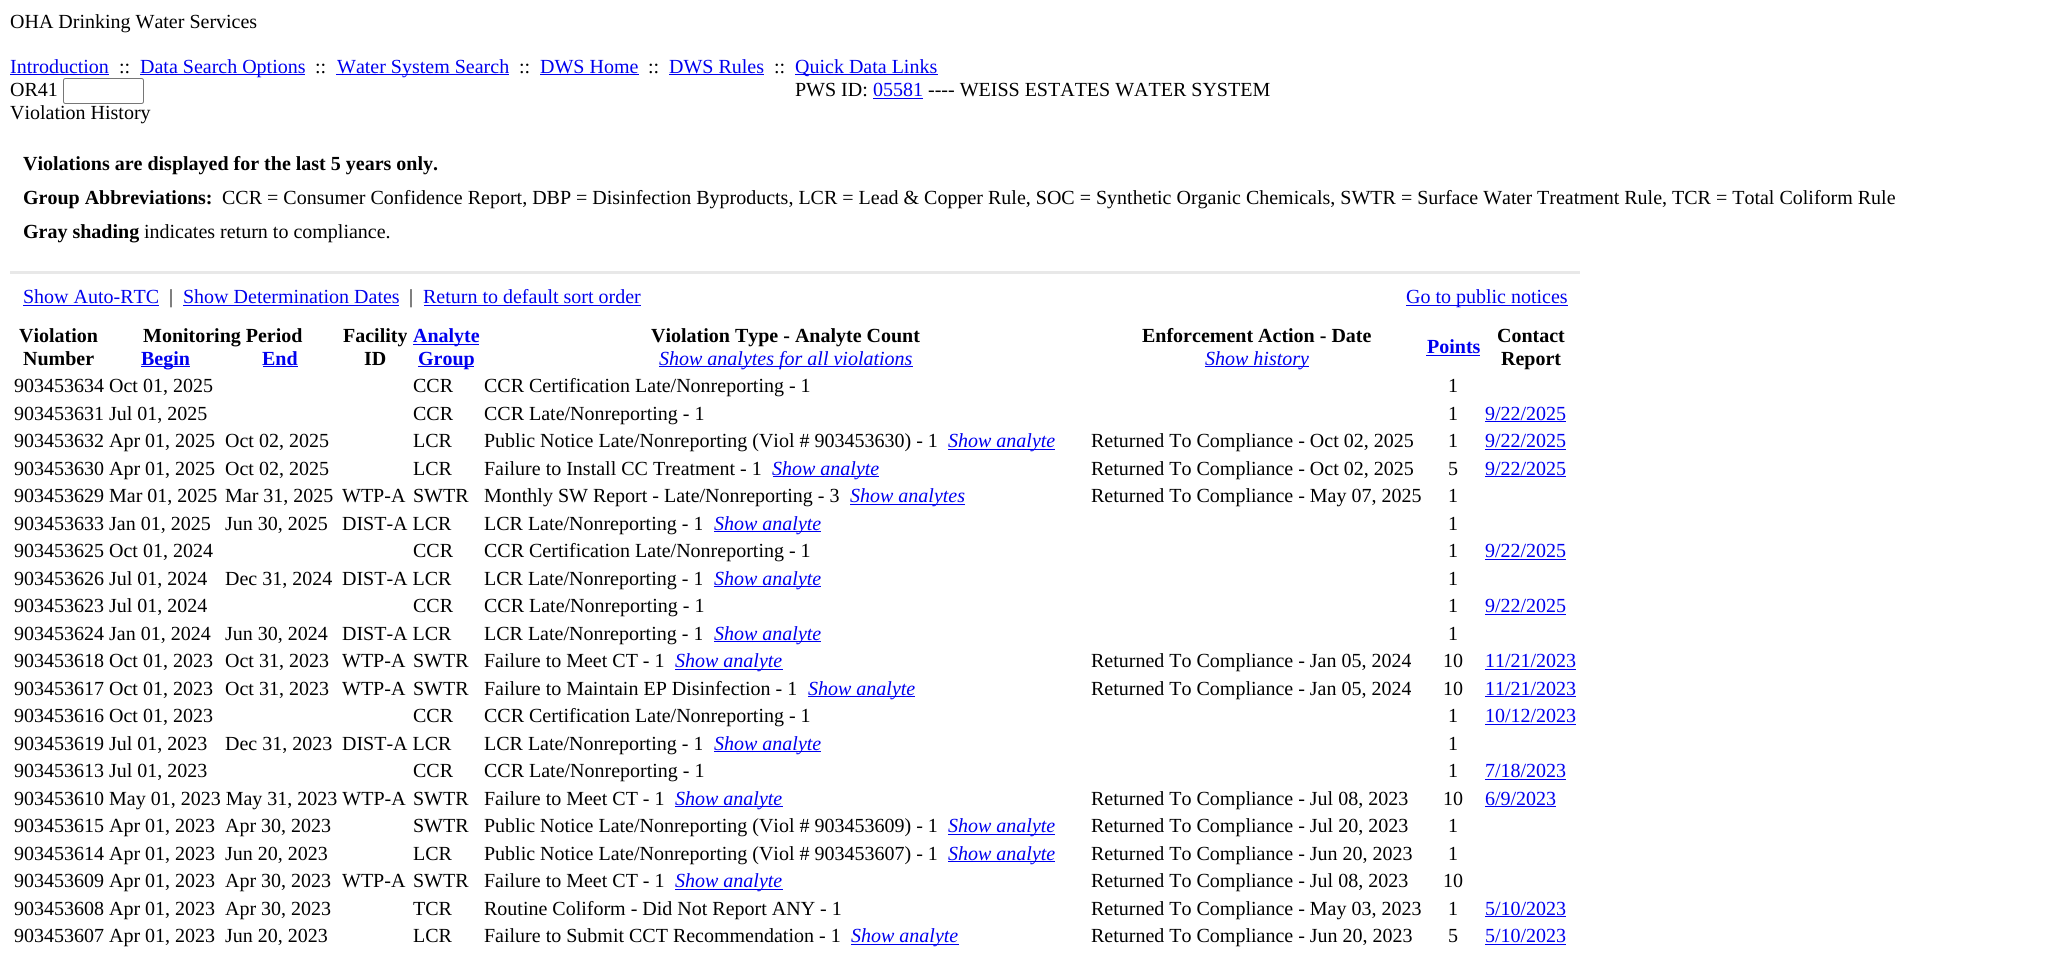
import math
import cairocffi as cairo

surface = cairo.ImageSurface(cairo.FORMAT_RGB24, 2064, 961)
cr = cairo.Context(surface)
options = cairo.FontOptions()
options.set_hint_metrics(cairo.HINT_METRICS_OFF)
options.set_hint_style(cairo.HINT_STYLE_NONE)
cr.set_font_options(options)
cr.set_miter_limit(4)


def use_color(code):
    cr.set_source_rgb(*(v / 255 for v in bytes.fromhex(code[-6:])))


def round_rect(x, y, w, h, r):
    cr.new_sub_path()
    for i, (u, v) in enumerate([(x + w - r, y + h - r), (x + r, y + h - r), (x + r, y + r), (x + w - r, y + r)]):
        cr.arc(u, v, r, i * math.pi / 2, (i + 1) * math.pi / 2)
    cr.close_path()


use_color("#ffffff")
cr.paint()
cr.select_font_face("Liberation Serif")
cr.set_font_size(20)
use_color("#000000")
cr.move_to(10, 28)
cr.show_text("OHA Drinking Water Services")
use_color("#0000ee")
cr.move_to(10, 73)
cr.show_text("Introduction")
cr.rectangle(10, 74, 99, 1)
cr.fill()
use_color("#000000")
cr.move_to(119, 73)
cr.show_text("::")
use_color("#0000ee")
cr.rectangle(140, 74, 165, 1)
cr.fill()
cr.move_to(140, 73)
cr.show_text("Data Search Options")
use_color("#000000")
cr.move_to(315, 73)
cr.show_text("::")
use_color("#0000ee")
cr.rectangle(336, 74, 173, 1)
cr.fill()
cr.move_to(337, 73)
cr.show_text("Water System Search")
use_color("#000000")
cr.move_to(519, 73)
cr.show_text("::")
use_color("#0000ee")
cr.move_to(540, 73)
cr.show_text("DWS Home")
cr.rectangle(540, 74, 99, 1)
cr.fill()
use_color("#000000")
cr.move_to(648, 73)
cr.show_text("::")
use_color("#0000ee")
cr.move_to(669, 73)
cr.show_text("DWS Rules")
cr.rectangle(669, 74, 95, 1)
cr.fill()
use_color("#000000")
cr.move_to(774, 73)
cr.show_text("::")
use_color("#0000ee")
cr.rectangle(795, 74, 143, 1)
cr.fill()
cr.move_to(795, 73)
cr.show_text("Quick Data Links")
use_color("#000000")
cr.move_to(10, 96)
cr.show_text("OR41")
round_rect(63.5, 78.5, 80, 25, 2)
use_color("#767676")
cr.set_line_width(1)
cr.stroke()
use_color("#000000")
cr.move_to(795, 96)
cr.show_text("PWS ID:")
use_color("#0000ee")
cr.move_to(873, 96)
cr.show_text("05581")
cr.rectangle(873, 98, 50, 1)
cr.fill()
use_color("#000000")
cr.move_to(928, 96)
cr.show_text("---- WEISS ESTATES WATER SYSTEM")
cr.move_to(10, 119)
cr.show_text("Violation History")
cr.select_font_face("Liberation Serif", cairo.FONT_SLANT_NORMAL, cairo.FONT_WEIGHT_BOLD)
cr.move_to(23, 170)
cr.show_text("Violations are displayed for the last 5 years only.")
cr.move_to(23, 204)
cr.show_text("Group Abbreviations:")
cr.select_font_face("Liberation Serif")
cr.move_to(222, 204)
cr.show_text("CCR = Consumer Confidence Report, DBP = Disinfection Byproducts, LCR = Lead & Copper Rule, SOC = Synthetic Organic Chemicals, SWTR = Surface Water Treatment Rule, TCR = Total Coliform Rule")
cr.select_font_face("Liberation Serif", cairo.FONT_SLANT_NORMAL, cairo.FONT_WEIGHT_BOLD)
cr.move_to(23, 238)
cr.show_text("Gray shading")
cr.select_font_face("Liberation Serif")
cr.move_to(144, 238)
cr.show_text("indicates return to compliance.")
use_color("#e8e8e8")
cr.rectangle(10, 271, 1570, 3)
cr.fill()
use_color("#0000ee")
cr.move_to(23, 303)
cr.show_text("Show Auto-RTC")
cr.rectangle(23, 305, 136, 1)
cr.fill()
use_color("#000000")
cr.move_to(169, 303)
cr.show_text("|")
use_color("#0000ee")
cr.move_to(183, 303)
cr.show_text("Show Determination Dates")
cr.rectangle(183, 305, 216, 1)
cr.fill()
use_color("#000000")
cr.move_to(409, 303)
cr.show_text("|")
use_color("#0000ee")
cr.move_to(423, 303)
cr.show_text("Return to default sort order")
cr.rectangle(424, 305, 217, 1)
cr.fill()
cr.rectangle(1406, 305, 162, 1)
cr.fill()
cr.move_to(1406, 303)
cr.show_text("Go to public notices")
cr.select_font_face("Liberation Serif", cairo.FONT_SLANT_NORMAL, cairo.FONT_WEIGHT_BOLD)
use_color("#000000")
cr.move_to(19, 342)
cr.show_text("Violation")
cr.move_to(23, 365)
cr.show_text("Number")
cr.move_to(143, 342)
cr.show_text("Monitoring Period")
use_color("#0000ee")
cr.rectangle(141, 366, 49, 1)
cr.fill()
cr.move_to(141, 365)
cr.show_text("Begin")
cr.move_to(262, 365)
cr.show_text("End")
cr.rectangle(263, 366, 35, 1)
cr.fill()
use_color("#000000")
cr.move_to(343, 342)
cr.show_text("Facility")
cr.move_to(364, 365)
cr.show_text("ID")
use_color("#0000ee")
cr.rectangle(413, 344, 66, 1)
cr.fill()
cr.move_to(413, 342)
cr.show_text("Analyte")
cr.rectangle(418, 366, 56, 1)
cr.fill()
cr.move_to(418, 365)
cr.show_text("Group")
use_color("#000000")
cr.move_to(651, 342)
cr.show_text("Violation Type - Analyte Count")
use_color("#0000ee")
cr.rectangle(659, 366, 254, 1)
cr.fill()
cr.select_font_face("Liberation Serif", cairo.FONT_SLANT_ITALIC)
cr.move_to(659, 365)
cr.show_text("Show analytes for all violations")
cr.select_font_face("Liberation Serif", cairo.FONT_SLANT_NORMAL, cairo.FONT_WEIGHT_BOLD)
use_color("#000000")
cr.move_to(1142, 342)
cr.show_text("Enforcement Action - Date")
use_color("#0000ee")
cr.rectangle(1205, 366, 104, 1)
cr.fill()
cr.select_font_face("Liberation Serif", cairo.FONT_SLANT_ITALIC)
cr.move_to(1205, 365)
cr.show_text("Show history")
cr.select_font_face("Liberation Serif", cairo.FONT_SLANT_NORMAL, cairo.FONT_WEIGHT_BOLD)
cr.move_to(1427, 353)
cr.show_text("Points")
cr.rectangle(1426, 355, 54, 1)
cr.fill()
use_color("#000000")
cr.move_to(1497, 342)
cr.show_text("Contact")
cr.move_to(1501, 365)
cr.show_text("Report")
cr.select_font_face("Liberation Serif")
cr.move_to(14, 392)
cr.show_text("903453634 Oct 01, 2025")
cr.move_to(413, 392)
cr.show_text("CCR")
cr.move_to(484, 392)
cr.show_text("CCR Certification Late/Nonreporting - 1")
cr.move_to(1448, 392)
cr.show_text("1")
cr.move_to(14, 420)
cr.show_text("903453631 Jul 01, 2025")
cr.move_to(413, 420)
cr.show_text("CCR")
cr.move_to(484, 420)
cr.show_text("CCR Late/Nonreporting - 1")
cr.move_to(1448, 420)
cr.show_text("1")
use_color("#0000ee")
cr.move_to(1485, 420)
cr.show_text("9/22/2025")
cr.rectangle(1485, 421, 81, 1)
cr.fill()
use_color("#000000")
cr.move_to(14, 447)
cr.show_text("903453632 Apr 01, 2025")
cr.move_to(225, 447)
cr.show_text("Oct 02, 2025")
cr.move_to(413, 447)
cr.show_text("LCR")
cr.move_to(484, 447)
cr.show_text("Public Notice Late/Nonreporting (Viol # 903453630) - 1")
use_color("#0000ee")
cr.rectangle(948, 449, 107, 1)
cr.fill()
cr.select_font_face("Liberation Serif", cairo.FONT_SLANT_ITALIC)
cr.move_to(948, 447)
cr.show_text("Show analyte")
cr.select_font_face("Liberation Serif")
use_color("#000000")
cr.move_to(1091, 447)
cr.show_text("Returned To Compliance - Oct 02, 2025")
cr.move_to(1448, 447)
cr.show_text("1")
use_color("#0000ee")
cr.move_to(1485, 447)
cr.show_text("9/22/2025")
cr.rectangle(1485, 449, 81, 1)
cr.fill()
use_color("#000000")
cr.move_to(14, 475)
cr.show_text("903453630 Apr 01, 2025")
cr.move_to(225, 475)
cr.show_text("Oct 02, 2025")
cr.move_to(413, 475)
cr.show_text("LCR")
cr.move_to(484, 475)
cr.show_text("Failure to Install CC Treatment - 1")
use_color("#0000ee")
cr.rectangle(773, 476, 106, 1)
cr.fill()
cr.select_font_face("Liberation Serif", cairo.FONT_SLANT_ITALIC)
cr.move_to(772, 475)
cr.show_text("Show analyte")
cr.select_font_face("Liberation Serif")
use_color("#000000")
cr.move_to(1091, 475)
cr.show_text("Returned To Compliance - Oct 02, 2025")
cr.move_to(1448, 475)
cr.show_text("5")
use_color("#0000ee")
cr.move_to(1485, 475)
cr.show_text("9/22/2025")
cr.rectangle(1485, 476, 81, 1)
cr.fill()
use_color("#000000")
cr.move_to(14, 502)
cr.show_text("903453629 Mar 01, 2025")
cr.move_to(225, 502)
cr.show_text("Mar 31, 2025")
cr.move_to(342, 502)
cr.show_text("WTP-A")
cr.move_to(413, 502)
cr.show_text("SWTR")
cr.move_to(484, 502)
cr.show_text("Monthly SW Report - Late/Nonreporting - 3")
use_color("#0000ee")
cr.rectangle(850, 504, 115, 1)
cr.fill()
cr.select_font_face("Liberation Serif", cairo.FONT_SLANT_ITALIC)
cr.move_to(850, 502)
cr.show_text("Show analytes")
cr.select_font_face("Liberation Serif")
use_color("#000000")
cr.move_to(1091, 502)
cr.show_text("Returned To Compliance - May 07, 2025")
cr.move_to(1448, 502)
cr.show_text("1")
cr.move_to(14, 530)
cr.show_text("903453633 Jan 01, 2025")
cr.move_to(225, 530)
cr.show_text("Jun 30, 2025")
cr.move_to(342, 530)
cr.show_text("DIST-A LCR")
cr.move_to(484, 530)
cr.show_text("LCR Late/Nonreporting - 1")
use_color("#0000ee")
cr.rectangle(714, 531, 107, 1)
cr.fill()
cr.select_font_face("Liberation Serif", cairo.FONT_SLANT_ITALIC)
cr.move_to(714, 530)
cr.show_text("Show analyte")
cr.select_font_face("Liberation Serif")
use_color("#000000")
cr.move_to(1448, 530)
cr.show_text("1")
cr.move_to(14, 557)
cr.show_text("903453625 Oct 01, 2024")
cr.move_to(413, 557)
cr.show_text("CCR")
cr.move_to(484, 557)
cr.show_text("CCR Certification Late/Nonreporting - 1")
cr.move_to(1448, 557)
cr.show_text("1")
use_color("#0000ee")
cr.move_to(1485, 557)
cr.show_text("9/22/2025")
cr.rectangle(1485, 559, 81, 1)
cr.fill()
use_color("#000000")
cr.move_to(14, 585)
cr.show_text("903453626 Jul 01, 2024")
cr.move_to(225, 585)
cr.show_text("Dec 31, 2024")
cr.move_to(342, 585)
cr.show_text("DIST-A LCR")
cr.move_to(484, 585)
cr.show_text("LCR Late/Nonreporting - 1")
use_color("#0000ee")
cr.rectangle(714, 586, 107, 1)
cr.fill()
cr.select_font_face("Liberation Serif", cairo.FONT_SLANT_ITALIC)
cr.move_to(714, 585)
cr.show_text("Show analyte")
cr.select_font_face("Liberation Serif")
use_color("#000000")
cr.move_to(1448, 585)
cr.show_text("1")
cr.move_to(14, 612)
cr.show_text("903453623 Jul 01, 2024")
cr.move_to(413, 612)
cr.show_text("CCR")
cr.move_to(484, 612)
cr.show_text("CCR Late/Nonreporting - 1")
cr.move_to(1448, 612)
cr.show_text("1")
use_color("#0000ee")
cr.move_to(1485, 612)
cr.show_text("9/22/2025")
cr.rectangle(1485, 614, 81, 1)
cr.fill()
use_color("#000000")
cr.move_to(14, 640)
cr.show_text("903453624 Jan 01, 2024")
cr.move_to(225, 640)
cr.show_text("Jun 30, 2024")
cr.move_to(342, 640)
cr.show_text("DIST-A LCR")
cr.move_to(484, 640)
cr.show_text("LCR Late/Nonreporting - 1")
use_color("#0000ee")
cr.rectangle(714, 641, 107, 1)
cr.fill()
cr.select_font_face("Liberation Serif", cairo.FONT_SLANT_ITALIC)
cr.move_to(714, 640)
cr.show_text("Show analyte")
cr.select_font_face("Liberation Serif")
use_color("#000000")
cr.move_to(1448, 640)
cr.show_text("1")
cr.move_to(14, 667)
cr.show_text("903453618 Oct 01, 2023")
cr.move_to(225, 667)
cr.show_text("Oct 31, 2023")
cr.move_to(342, 667)
cr.show_text("WTP-A")
cr.move_to(413, 667)
cr.show_text("SWTR")
cr.move_to(484, 667)
cr.show_text("Failure to Meet CT - 1")
use_color("#0000ee")
cr.rectangle(675, 669, 108, 1)
cr.fill()
cr.select_font_face("Liberation Serif", cairo.FONT_SLANT_ITALIC)
cr.move_to(675, 667)
cr.show_text("Show analyte")
cr.select_font_face("Liberation Serif")
use_color("#000000")
cr.move_to(1091, 667)
cr.show_text("Returned To Compliance - Jan 05, 2024")
cr.move_to(1443, 667)
cr.show_text("10")
use_color("#0000ee")
cr.move_to(1485, 667)
cr.show_text("11/21/2023")
cr.rectangle(1485, 669, 91, 1)
cr.fill()
use_color("#000000")
cr.move_to(14, 695)
cr.show_text("903453617 Oct 01, 2023")
cr.move_to(225, 695)
cr.show_text("Oct 31, 2023")
cr.move_to(342, 695)
cr.show_text("WTP-A")
cr.move_to(413, 695)
cr.show_text("SWTR")
cr.move_to(484, 695)
cr.show_text("Failure to Maintain EP Disinfection - 1")
use_color("#0000ee")
cr.rectangle(808, 696, 107, 1)
cr.fill()
cr.select_font_face("Liberation Serif", cairo.FONT_SLANT_ITALIC)
cr.move_to(808, 695)
cr.show_text("Show analyte")
cr.select_font_face("Liberation Serif")
use_color("#000000")
cr.move_to(1091, 695)
cr.show_text("Returned To Compliance - Jan 05, 2024")
cr.move_to(1443, 695)
cr.show_text("10")
use_color("#0000ee")
cr.move_to(1485, 695)
cr.show_text("11/21/2023")
cr.rectangle(1485, 696, 91, 1)
cr.fill()
use_color("#000000")
cr.move_to(14, 722)
cr.show_text("903453616 Oct 01, 2023")
cr.move_to(413, 722)
cr.show_text("CCR")
cr.move_to(484, 722)
cr.show_text("CCR Certification Late/Nonreporting - 1")
cr.move_to(1448, 722)
cr.show_text("1")
use_color("#0000ee")
cr.move_to(1485, 722)
cr.show_text("10/12/2023")
cr.rectangle(1485, 724, 91, 1)
cr.fill()
use_color("#000000")
cr.move_to(14, 750)
cr.show_text("903453619 Jul 01, 2023")
cr.move_to(225, 750)
cr.show_text("Dec 31, 2023")
cr.move_to(342, 750)
cr.show_text("DIST-A LCR")
cr.move_to(484, 750)
cr.show_text("LCR Late/Nonreporting - 1")
use_color("#0000ee")
cr.rectangle(714, 751, 107, 1)
cr.fill()
cr.select_font_face("Liberation Serif", cairo.FONT_SLANT_ITALIC)
cr.move_to(714, 750)
cr.show_text("Show analyte")
cr.select_font_face("Liberation Serif")
use_color("#000000")
cr.move_to(1448, 750)
cr.show_text("1")
cr.move_to(14, 777)
cr.show_text("903453613 Jul 01, 2023")
cr.move_to(413, 777)
cr.show_text("CCR")
cr.move_to(484, 777)
cr.show_text("CCR Late/Nonreporting - 1")
cr.move_to(1448, 777)
cr.show_text("1")
use_color("#0000ee")
cr.move_to(1485, 777)
cr.show_text("7/18/2023")
cr.rectangle(1485, 779, 81, 1)
cr.fill()
use_color("#000000")
cr.move_to(14, 805)
cr.show_text("903453610 May 01, 2023 May 31, 2023 WTP-A")
cr.move_to(413, 805)
cr.show_text("SWTR")
cr.move_to(484, 805)
cr.show_text("Failure to Meet CT - 1")
use_color("#0000ee")
cr.rectangle(675, 806, 108, 1)
cr.fill()
cr.select_font_face("Liberation Serif", cairo.FONT_SLANT_ITALIC)
cr.move_to(675, 805)
cr.show_text("Show analyte")
cr.select_font_face("Liberation Serif")
use_color("#000000")
cr.move_to(1091, 805)
cr.show_text("Returned To Compliance - Jul 08, 2023")
cr.move_to(1443, 805)
cr.show_text("10")
use_color("#0000ee")
cr.move_to(1485, 805)
cr.show_text("6/9/2023")
cr.rectangle(1485, 806, 71, 1)
cr.fill()
use_color("#000000")
cr.move_to(14, 832)
cr.show_text("903453615 Apr 01, 2023")
cr.move_to(225, 832)
cr.show_text("Apr 30, 2023")
cr.move_to(413, 832)
cr.show_text("SWTR")
cr.move_to(484, 832)
cr.show_text("Public Notice Late/Nonreporting (Viol # 903453609) - 1")
use_color("#0000ee")
cr.rectangle(948, 834, 107, 1)
cr.fill()
cr.select_font_face("Liberation Serif", cairo.FONT_SLANT_ITALIC)
cr.move_to(948, 832)
cr.show_text("Show analyte")
cr.select_font_face("Liberation Serif")
use_color("#000000")
cr.move_to(1091, 832)
cr.show_text("Returned To Compliance - Jul 20, 2023")
cr.move_to(1448, 832)
cr.show_text("1")
cr.move_to(14, 860)
cr.show_text("903453614 Apr 01, 2023")
cr.move_to(225, 860)
cr.show_text("Jun 20, 2023")
cr.move_to(413, 860)
cr.show_text("LCR")
cr.move_to(484, 860)
cr.show_text("Public Notice Late/Nonreporting (Viol # 903453607) - 1")
use_color("#0000ee")
cr.rectangle(948, 861, 107, 1)
cr.fill()
cr.select_font_face("Liberation Serif", cairo.FONT_SLANT_ITALIC)
cr.move_to(948, 860)
cr.show_text("Show analyte")
cr.select_font_face("Liberation Serif")
use_color("#000000")
cr.move_to(1091, 860)
cr.show_text("Returned To Compliance - Jun 20, 2023")
cr.move_to(1448, 860)
cr.show_text("1")
cr.move_to(14, 887)
cr.show_text("903453609 Apr 01, 2023")
cr.move_to(225, 887)
cr.show_text("Apr 30, 2023")
cr.move_to(342, 887)
cr.show_text("WTP-A")
cr.move_to(413, 887)
cr.show_text("SWTR")
cr.move_to(484, 887)
cr.show_text("Failure to Meet CT - 1")
use_color("#0000ee")
cr.rectangle(675, 889, 108, 1)
cr.fill()
cr.select_font_face("Liberation Serif", cairo.FONT_SLANT_ITALIC)
cr.move_to(675, 887)
cr.show_text("Show analyte")
cr.select_font_face("Liberation Serif")
use_color("#000000")
cr.move_to(1091, 887)
cr.show_text("Returned To Compliance - Jul 08, 2023")
cr.move_to(1443, 887)
cr.show_text("10")
cr.move_to(14, 915)
cr.show_text("903453608 Apr 01, 2023")
cr.move_to(225, 915)
cr.show_text("Apr 30, 2023")
cr.move_to(413, 915)
cr.show_text("TCR")
cr.move_to(484, 915)
cr.show_text("Routine Coliform - Did Not Report ANY - 1")
cr.move_to(1091, 915)
cr.show_text("Returned To Compliance - May 03, 2023")
cr.move_to(1448, 915)
cr.show_text("1")
use_color("#0000ee")
cr.move_to(1485, 915)
cr.show_text("5/10/2023")
cr.rectangle(1485, 916, 81, 1)
cr.fill()
use_color("#000000")
cr.move_to(14, 942)
cr.show_text("903453607 Apr 01, 2023")
cr.move_to(225, 942)
cr.show_text("Jun 20, 2023")
cr.move_to(413, 942)
cr.show_text("LCR")
cr.move_to(484, 942)
cr.show_text("Failure to Submit CCT Recommendation - 1")
use_color("#0000ee")
cr.rectangle(851, 944, 108, 1)
cr.fill()
cr.select_font_face("Liberation Serif", cairo.FONT_SLANT_ITALIC)
cr.move_to(851, 942)
cr.show_text("Show analyte")
cr.select_font_face("Liberation Serif")
use_color("#000000")
cr.move_to(1091, 942)
cr.show_text("Returned To Compliance - Jun 20, 2023")
cr.move_to(1448, 942)
cr.show_text("5")
use_color("#0000ee")
cr.move_to(1485, 942)
cr.show_text("5/10/2023")
cr.rectangle(1485, 944, 81, 1)
cr.fill()
surface.write_to_png("result.png")
